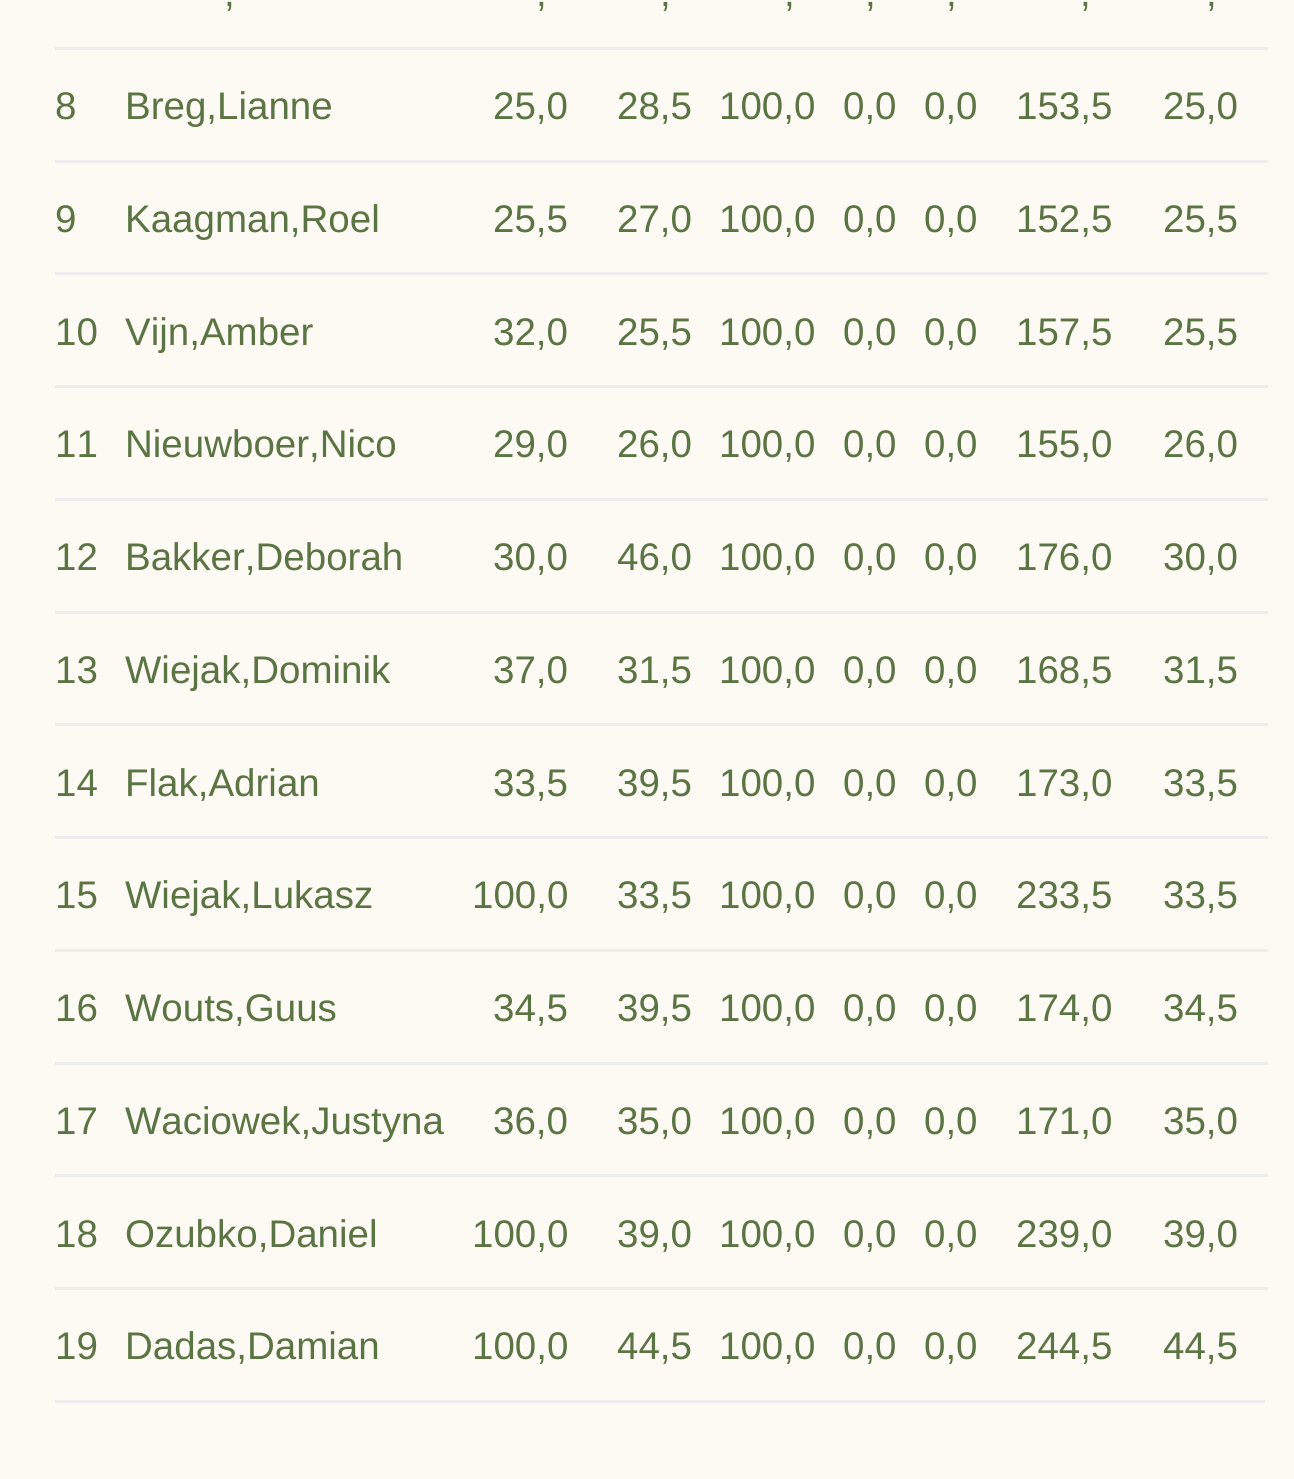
import math
import cairocffi as cairo

surface = cairo.ImageSurface(cairo.FORMAT_RGB24, 1294, 1479)
cr = cairo.Context(surface)
options = cairo.FontOptions()
options.set_hint_metrics(cairo.HINT_METRICS_OFF)
options.set_hint_style(cairo.HINT_STYLE_NONE)
cr.set_font_options(options)
cr.set_miter_limit(4)


def use_color(code):
    cr.set_source_rgb(*(v / 255 for v in bytes.fromhex(code[-6:])))


use_color("#fcfaf2")
cr.paint()
use_color("#ededed")
cr.rectangle(55, 1400, 1210, 3)
cr.fill()
cr.select_font_face("Liberation Sans")
cr.set_font_size(38.5)
use_color("#5b7444")
cr.move_to(224, 6)
cr.show_text(",")
cr.move_to(536, 6)
cr.show_text(",")
cr.move_to(660, 6)
cr.show_text(",")
cr.move_to(784, 6)
cr.show_text(",")
cr.move_to(865, 6)
cr.show_text(",")
cr.move_to(946, 6)
cr.show_text(",")
cr.move_to(1080, 6)
cr.show_text(",")
cr.move_to(1206, 6)
cr.show_text(",")
cr.move_to(55, 119)
cr.show_text("8")
cr.move_to(125, 119)
cr.show_text("Breg,Lianne")
cr.move_to(493, 119)
cr.show_text("25,0")
cr.move_to(617, 119)
cr.show_text("28,5")
cr.move_to(719, 119)
cr.show_text("100,0")
cr.move_to(843, 119)
cr.show_text("0,0")
cr.move_to(924, 119)
cr.show_text("0,0")
cr.move_to(1016, 119)
cr.show_text("153,5")
use_color("#ededed")
cr.rectangle(55, 47, 1213, 3)
cr.fill()
use_color("#5b7444")
cr.move_to(1163, 119)
cr.show_text("25,0")
cr.move_to(55, 232)
cr.show_text("9")
cr.move_to(125, 232)
cr.show_text("Kaagman,Roel")
cr.move_to(493, 232)
cr.show_text("25,5")
cr.move_to(617, 232)
cr.show_text("27,0")
cr.move_to(719, 232)
cr.show_text("100,0")
cr.move_to(843, 232)
cr.show_text("0,0")
cr.move_to(924, 232)
cr.show_text("0,0")
cr.move_to(1016, 232)
cr.show_text("152,5")
use_color("#ededed")
cr.rectangle(55, 160, 1213, 3)
cr.fill()
use_color("#5b7444")
cr.move_to(1163, 232)
cr.show_text("25,5")
cr.move_to(55, 345)
cr.show_text("10")
cr.move_to(125, 345)
cr.show_text("Vijn,Amber")
cr.move_to(493, 345)
cr.show_text("32,0")
cr.move_to(617, 345)
cr.show_text("25,5")
cr.move_to(719, 345)
cr.show_text("100,0")
cr.move_to(843, 345)
cr.show_text("0,0")
cr.move_to(924, 345)
cr.show_text("0,0")
cr.move_to(1016, 345)
cr.show_text("157,5")
use_color("#ededed")
cr.rectangle(55, 272, 1213, 3)
cr.fill()
use_color("#5b7444")
cr.move_to(1163, 345)
cr.show_text("25,5")
cr.move_to(55, 457)
cr.show_text("11")
cr.move_to(125, 457)
cr.show_text("Nieuwboer,Nico")
cr.move_to(493, 457)
cr.show_text("29,0")
cr.move_to(617, 457)
cr.show_text("26,0")
cr.move_to(719, 457)
cr.show_text("100,0")
cr.move_to(843, 457)
cr.show_text("0,0")
cr.move_to(924, 457)
cr.show_text("0,0")
cr.move_to(1016, 457)
cr.show_text("155,0")
use_color("#ededed")
cr.rectangle(55, 385, 1213, 3)
cr.fill()
use_color("#5b7444")
cr.move_to(1163, 457)
cr.show_text("26,0")
cr.move_to(55, 570)
cr.show_text("12")
cr.move_to(125, 570)
cr.show_text("Bakker,Deborah")
cr.move_to(493, 570)
cr.show_text("30,0")
cr.move_to(617, 570)
cr.show_text("46,0")
cr.move_to(719, 570)
cr.show_text("100,0")
cr.move_to(843, 570)
cr.show_text("0,0")
cr.move_to(924, 570)
cr.show_text("0,0")
cr.move_to(1016, 570)
cr.show_text("176,0")
use_color("#ededed")
cr.rectangle(55, 498, 1213, 3)
cr.fill()
use_color("#5b7444")
cr.move_to(1163, 570)
cr.show_text("30,0")
cr.move_to(55, 683)
cr.show_text("13")
cr.move_to(125, 683)
cr.show_text("Wiejak,Dominik")
cr.move_to(493, 683)
cr.show_text("37,0")
cr.move_to(617, 683)
cr.show_text("31,5")
cr.move_to(719, 683)
cr.show_text("100,0")
cr.move_to(843, 683)
cr.show_text("0,0")
cr.move_to(924, 683)
cr.show_text("0,0")
cr.move_to(1016, 683)
cr.show_text("168,5")
use_color("#ededed")
cr.rectangle(55, 611, 1213, 3)
cr.fill()
use_color("#5b7444")
cr.move_to(1163, 683)
cr.show_text("31,5")
cr.move_to(55, 796)
cr.show_text("14")
cr.move_to(125, 796)
cr.show_text("Flak,Adrian")
cr.move_to(493, 796)
cr.show_text("33,5")
cr.move_to(617, 796)
cr.show_text("39,5")
cr.move_to(719, 796)
cr.show_text("100,0")
cr.move_to(843, 796)
cr.show_text("0,0")
cr.move_to(924, 796)
cr.show_text("0,0")
cr.move_to(1016, 796)
cr.show_text("173,0")
use_color("#ededed")
cr.rectangle(55, 723, 1213, 3)
cr.fill()
use_color("#5b7444")
cr.move_to(1163, 796)
cr.show_text("33,5")
cr.move_to(55, 908)
cr.show_text("15")
cr.move_to(125, 908)
cr.show_text("Wiejak,Lukasz")
cr.move_to(472, 908)
cr.show_text("100,0")
cr.move_to(617, 908)
cr.show_text("33,5")
cr.move_to(719, 908)
cr.show_text("100,0")
cr.move_to(843, 908)
cr.show_text("0,0")
cr.move_to(924, 908)
cr.show_text("0,0")
cr.move_to(1016, 908)
cr.show_text("233,5")
use_color("#ededed")
cr.rectangle(55, 836, 1213, 3)
cr.fill()
use_color("#5b7444")
cr.move_to(1163, 908)
cr.show_text("33,5")
cr.move_to(55, 1021)
cr.show_text("16")
cr.move_to(125, 1021)
cr.show_text("Wouts,Guus")
cr.move_to(493, 1021)
cr.show_text("34,5")
cr.move_to(617, 1021)
cr.show_text("39,5")
cr.move_to(719, 1021)
cr.show_text("100,0")
cr.move_to(843, 1021)
cr.show_text("0,0")
cr.move_to(924, 1021)
cr.show_text("0,0")
cr.move_to(1016, 1021)
cr.show_text("174,0")
use_color("#ededed")
cr.rectangle(55, 949, 1213, 3)
cr.fill()
use_color("#5b7444")
cr.move_to(1163, 1021)
cr.show_text("34,5")
cr.move_to(55, 1134)
cr.show_text("17")
cr.move_to(125, 1134)
cr.show_text("Waciowek,Justyna")
cr.move_to(493, 1134)
cr.show_text("36,0")
cr.move_to(617, 1134)
cr.show_text("35,0")
cr.move_to(719, 1134)
cr.show_text("100,0")
cr.move_to(843, 1134)
cr.show_text("0,0")
cr.move_to(924, 1134)
cr.show_text("0,0")
cr.move_to(1016, 1134)
cr.show_text("171,0")
use_color("#ededed")
cr.rectangle(55, 1062, 1213, 3)
cr.fill()
use_color("#5b7444")
cr.move_to(1163, 1134)
cr.show_text("35,0")
cr.move_to(55, 1247)
cr.show_text("18")
cr.move_to(125, 1247)
cr.show_text("Ozubko,Daniel")
cr.move_to(472, 1247)
cr.show_text("100,0")
cr.move_to(617, 1247)
cr.show_text("39,0")
cr.move_to(719, 1247)
cr.show_text("100,0")
cr.move_to(843, 1247)
cr.show_text("0,0")
cr.move_to(924, 1247)
cr.show_text("0,0")
cr.move_to(1016, 1247)
cr.show_text("239,0")
use_color("#ededed")
cr.rectangle(55, 1174, 1213, 3)
cr.fill()
use_color("#5b7444")
cr.move_to(1163, 1247)
cr.show_text("39,0")
cr.move_to(55, 1359)
cr.show_text("19")
cr.move_to(125, 1359)
cr.show_text("Dadas,Damian")
cr.move_to(472, 1359)
cr.show_text("100,0")
cr.move_to(617, 1359)
cr.show_text("44,5")
cr.move_to(719, 1359)
cr.show_text("100,0")
cr.move_to(843, 1359)
cr.show_text("0,0")
cr.move_to(924, 1359)
cr.show_text("0,0")
cr.move_to(1016, 1359)
cr.show_text("244,5")
use_color("#ededed")
cr.rectangle(55, 1287, 1213, 3)
cr.fill()
use_color("#5b7444")
cr.move_to(1163, 1359)
cr.show_text("44,5")
surface.write_to_png("result.png")
